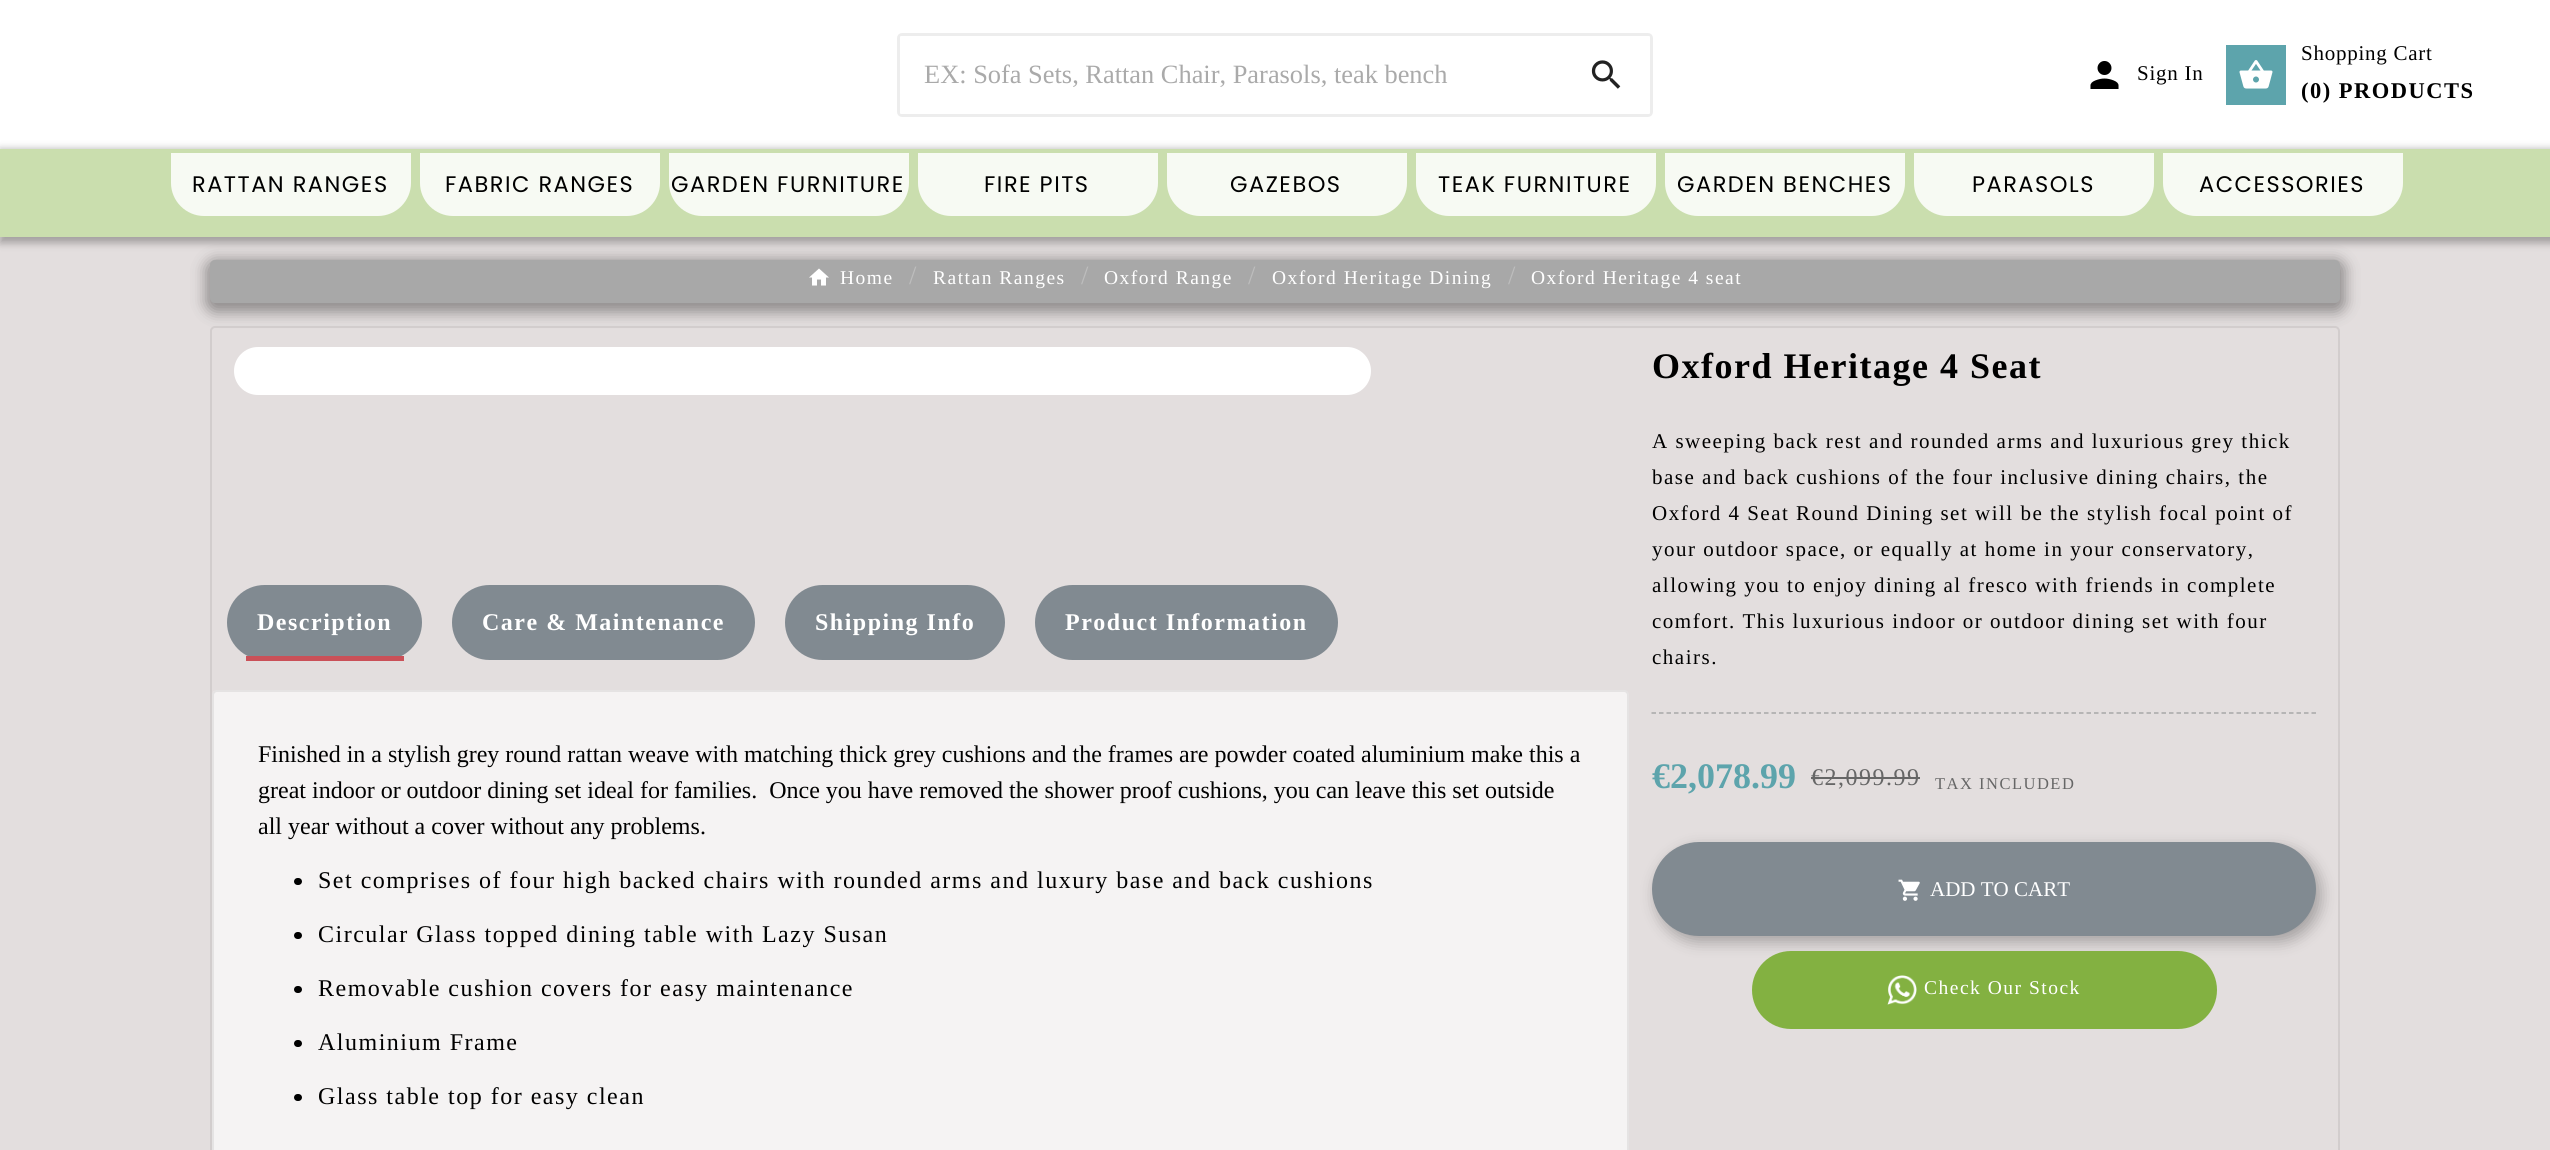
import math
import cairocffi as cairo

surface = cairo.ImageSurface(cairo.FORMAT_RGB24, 2550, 1150)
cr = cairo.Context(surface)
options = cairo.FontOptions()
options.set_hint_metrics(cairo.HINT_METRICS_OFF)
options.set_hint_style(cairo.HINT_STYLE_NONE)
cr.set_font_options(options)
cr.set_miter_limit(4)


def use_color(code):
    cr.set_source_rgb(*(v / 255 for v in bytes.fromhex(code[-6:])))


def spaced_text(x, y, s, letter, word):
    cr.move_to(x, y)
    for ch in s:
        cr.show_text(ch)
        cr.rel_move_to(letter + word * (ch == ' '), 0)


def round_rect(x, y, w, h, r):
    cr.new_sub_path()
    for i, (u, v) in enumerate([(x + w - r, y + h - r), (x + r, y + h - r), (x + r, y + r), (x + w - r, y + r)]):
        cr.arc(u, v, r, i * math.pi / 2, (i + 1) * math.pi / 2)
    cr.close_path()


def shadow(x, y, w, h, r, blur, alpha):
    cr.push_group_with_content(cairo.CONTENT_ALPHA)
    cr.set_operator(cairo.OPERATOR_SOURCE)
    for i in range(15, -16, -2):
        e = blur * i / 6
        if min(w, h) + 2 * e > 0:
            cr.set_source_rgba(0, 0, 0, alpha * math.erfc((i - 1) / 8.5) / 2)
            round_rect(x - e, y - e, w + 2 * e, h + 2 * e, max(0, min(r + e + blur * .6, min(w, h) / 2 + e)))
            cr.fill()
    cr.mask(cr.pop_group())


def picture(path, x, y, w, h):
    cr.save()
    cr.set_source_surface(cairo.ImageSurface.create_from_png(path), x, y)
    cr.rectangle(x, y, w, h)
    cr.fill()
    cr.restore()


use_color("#e3dede")
cr.paint()
use_color("#ffffff")
cr.rectangle(0, 0, 2550, 149)
cr.fill()
round_rect(898.5, 34.5, 753, 81, 3.5)
use_color("#ededed")
cr.set_line_width(3)
cr.stroke()
use_color("#ffffff")
cr.new_path()
cr.move_to(901.5, 36)
cr.line_to(1563, 36)
cr.line_to(1563, 114)
cr.line_to(901.5, 114)
cr.curve_to(900.5, 114, 900, 113.5, 900, 112.5)
cr.line_to(900, 37.5)
cr.curve_to(900, 36.5, 900.5, 36, 901.5, 36)
cr.close_path()
cr.fill()
cr.select_font_face("Liberation Serif")
cr.set_font_size(26.4)
use_color("#aaaaaa")
cr.move_to(924, 83)
cr.show_text("EX: Sofa Sets, Rattan Chair, Parasols, teak bench")
use_color("#ffffff")
cr.new_path()
cr.move_to(1563, 36)
cr.line_to(1648.5, 36)
cr.curve_to(1649.5, 36, 1650, 36.5, 1650, 37.5)
cr.line_to(1650, 112.5)
cr.curve_to(1650, 113.5, 1649.5, 114, 1648.5, 114)
cr.line_to(1563, 114)
cr.close_path()
cr.fill()
picture("img1.png", 1591, 60, 30, 29)
picture("img2.png", 2090, 61, 29, 28)
cr.set_font_size(21)
use_color("#000000")
spaced_text(2137, 80, "Sign In", 0.75, 0)
use_color("#5da4ac")
cr.rectangle(2226, 45, 60, 60)
cr.fill()
picture("img3.png", 2239, 60, 34, 29)
use_color("#000000")
spaced_text(2301, 60, "Shopping Cart", 0.75, 0)
cr.select_font_face("Liberation Serif", cairo.FONT_SLANT_NORMAL, cairo.FONT_WEIGHT_BOLD)
cr.set_font_size(22.5)
spaced_text(2301, 98, "(0) PRODUCTS", 1.5, 0)
use_color("#262626")
shadow(0, 149, 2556, 94, 0, 4, 0.34)
use_color("#cadeae")
cr.rectangle(0, 149, 2550, 88)
cr.fill()
use_color("#f7faf3")
cr.new_path()
cr.move_to(171, 153)
cr.line_to(411, 153)
cr.line_to(411, 183)
cr.curve_to(411, 201, 396, 216, 378, 216)
cr.line_to(204, 216)
cr.curve_to(186, 216, 171, 201, 171, 183)
cr.close_path()
cr.fill()
cr.select_font_face("Poppins")
use_color("#000000")
spaced_text(192, 192, "RATTAN RANGES", 1.5, 0)
use_color("#f7faf3")
cr.new_path()
cr.move_to(420, 153)
cr.line_to(660, 153)
cr.line_to(660, 183)
cr.curve_to(660, 201, 645, 216, 627, 216)
cr.line_to(453, 216)
cr.curve_to(435, 216, 420, 201, 420, 183)
cr.close_path()
cr.fill()
use_color("#000000")
spaced_text(445, 192, "FABRIC RANGES", 1.5, 0)
use_color("#f7faf3")
cr.new_path()
cr.move_to(669, 153)
cr.line_to(909, 153)
cr.line_to(909, 183)
cr.curve_to(909, 201, 894, 216, 876, 216)
cr.line_to(702, 216)
cr.curve_to(684, 216, 669, 201, 669, 183)
cr.close_path()
cr.fill()
use_color("#000000")
spaced_text(671, 192, "GARDEN FURNITURE", 1.5, 0)
use_color("#f7faf3")
cr.new_path()
cr.move_to(918, 153)
cr.line_to(1158, 153)
cr.line_to(1158, 183)
cr.curve_to(1158, 201, 1143, 216, 1125, 216)
cr.line_to(951, 216)
cr.curve_to(933, 216, 918, 201, 918, 183)
cr.close_path()
cr.fill()
use_color("#000000")
spaced_text(984, 192, "FIRE PITS", 1.5, 0)
use_color("#f7faf3")
cr.new_path()
cr.move_to(1167, 153)
cr.line_to(1407, 153)
cr.line_to(1407, 183)
cr.curve_to(1407, 201, 1392, 216, 1374, 216)
cr.line_to(1200, 216)
cr.curve_to(1182, 216, 1167, 201, 1167, 183)
cr.close_path()
cr.fill()
use_color("#000000")
spaced_text(1230, 192, "GAZEBOS", 1.5, 0)
use_color("#f7faf3")
cr.new_path()
cr.move_to(1416, 153)
cr.line_to(1656, 153)
cr.line_to(1656, 183)
cr.curve_to(1656, 201, 1641, 216, 1623, 216)
cr.line_to(1449, 216)
cr.curve_to(1431, 216, 1416, 201, 1416, 183)
cr.close_path()
cr.fill()
use_color("#000000")
spaced_text(1438, 192, "TEAK FURNITURE", 1.5, 0)
use_color("#f7faf3")
cr.new_path()
cr.move_to(1665, 153)
cr.line_to(1905, 153)
cr.line_to(1905, 183)
cr.curve_to(1905, 201, 1890, 216, 1872, 216)
cr.line_to(1698, 216)
cr.curve_to(1680, 216, 1665, 201, 1665, 183)
cr.close_path()
cr.fill()
use_color("#000000")
spaced_text(1677, 192, "GARDEN BENCHES", 1.5, 0)
use_color("#f7faf3")
cr.new_path()
cr.move_to(1914, 153)
cr.line_to(2154, 153)
cr.line_to(2154, 183)
cr.curve_to(2154, 201, 2139, 216, 2121, 216)
cr.line_to(1947, 216)
cr.curve_to(1929, 216, 1914, 201, 1914, 183)
cr.close_path()
cr.fill()
use_color("#000000")
spaced_text(1972, 192, "PARASOLS", 1.5, 0)
use_color("#f7faf3")
cr.new_path()
cr.move_to(2163, 153)
cr.line_to(2403, 153)
cr.line_to(2403, 183)
cr.curve_to(2403, 201, 2388, 216, 2370, 216)
cr.line_to(2196, 216)
cr.curve_to(2178, 216, 2163, 201, 2163, 183)
cr.close_path()
cr.fill()
use_color("#000000")
spaced_text(2199, 192, "ACCESSORIES", 1.5, 0)
use_color("#000000")
shadow(206, 260, 2139, 52, 9, 7.5, 0.38)
use_color("#a8a8a8")
round_rect(210, 260, 2130, 43, 5)
cr.fill()
picture("img4.png", 809, 268, 20, 18)
cr.select_font_face("Liberation Serif")
cr.set_font_size(19.5)
use_color("#ffffff")
spaced_text(840, 284, "Home", 1.5, 0)
cr.set_font_size(26.4)
use_color("#bdbdbd")
spaced_text(909, 284, "/", 1.5, 0)
cr.set_font_size(19.5)
use_color("#ffffff")
spaced_text(933, 284, "Rattan Ranges", 1.5, 0)
cr.set_font_size(26.4)
use_color("#bdbdbd")
spaced_text(1081, 284, "/", 1.5, 0)
cr.set_font_size(19.5)
use_color("#ffffff")
spaced_text(1104, 284, "Oxford Range", 1.5, 0)
cr.set_font_size(26.4)
use_color("#bdbdbd")
spaced_text(1248, 284, "/", 1.5, 0)
cr.set_font_size(19.5)
use_color("#ffffff")
spaced_text(1272, 284, "Oxford Heritage Dining", 1.5, 0)
cr.set_font_size(26.4)
use_color("#bdbdbd")
spaced_text(1508, 284, "/", 1.5, 0)
cr.set_font_size(19.5)
use_color("#ffffff")
spaced_text(1531, 284, "Oxford Heritage 4 seat", 1.5, 0)
round_rect(211, 327, 2128, 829, 4)
use_color("#d2cdcd")
cr.set_line_width(2)
cr.stroke()
use_color("#ffffff")
round_rect(234, 347, 1137, 48, 24)
cr.fill()
use_color("#818a91")
round_rect(227, 585, 195, 75, 37.5)
cr.fill()
use_color("#ca5058")
cr.rectangle(246, 656, 158, 5)
cr.fill()
cr.select_font_face("Liberation Serif", cairo.FONT_SLANT_NORMAL, cairo.FONT_WEIGHT_BOLD)
cr.set_font_size(24)
use_color("#ffffff")
spaced_text(257, 630, "Description", 1.5, 0)
use_color("#818a91")
round_rect(452, 585, 303, 75, 37.5)
cr.fill()
use_color("#ffffff")
spaced_text(482, 630, "Care & Maintenance", 1.5, 0)
use_color("#818a91")
round_rect(785, 585, 220, 75, 37.5)
cr.fill()
use_color("#ffffff")
spaced_text(815, 630, "Shipping Info", 1.5, 0)
use_color("#818a91")
round_rect(1035, 585, 303, 75, 37.5)
cr.fill()
use_color("#ffffff")
spaced_text(1065, 630, "Product Information", 1.5, 0)
use_color("#f5f3f3")
round_rect(212, 690, 1417, 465, 5)
cr.fill()
round_rect(213, 691, 1415, 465, 4)
cr.set_source_rgba(0, 0, 0, 0.07)
cr.stroke()
cr.select_font_face("Liberation Serif")
use_color("#000000")
cr.move_to(258, 762)
cr.show_text("Finished in a stylish grey round rattan weave with matching thick grey cushions and the frames are powder coated aluminium make this a")
cr.move_to(258, 798)
cr.show_text("great indoor or outdoor dining set ideal for families.  Once you have removed the shower proof cushions, you can leave this set outside")
cr.move_to(258, 834)
cr.show_text("all year without a cover without any problems.")
round_rect(294, 878, 8, 7, 3.5)
cr.fill()
spaced_text(318, 888, "Set comprises of four high backed chairs with rounded arms and luxury base and back cushions", 1.5, 0)
round_rect(294, 932, 8, 7, 3.5)
cr.fill()
spaced_text(318, 942, "Circular Glass topped dining table with Lazy Susan", 1.5, 0)
round_rect(294, 986, 8, 7, 3.5)
cr.fill()
spaced_text(318, 996, "Removable cushion covers for easy maintenance", 1.5, 0)
round_rect(294, 1040, 8, 7, 3.5)
cr.fill()
spaced_text(318, 1050, "Aluminium Frame", 1.5, 0)
round_rect(294, 1094, 8, 7, 3.5)
cr.fill()
spaced_text(318, 1104, "Glass table top for easy clean", 1.5, 0)
cr.select_font_face("Liberation Serif", cairo.FONT_SLANT_NORMAL, cairo.FONT_WEIGHT_BOLD)
cr.set_font_size(36)
spaced_text(1652, 378, "Oxford Heritage 4 Seat", 1.5, 0)
cr.select_font_face("Liberation Serif")
cr.set_font_size(21)
spaced_text(1652, 448, "A sweeping back rest and rounded arms and luxurious grey thick", 1.5, 0)
spaced_text(1652, 484, "base and back cushions of the four inclusive dining chairs, the", 1.5, 0)
spaced_text(1652, 520, "Oxford 4 Seat Round Dining set will be the stylish focal point of", 1.5, 0)
spaced_text(1652, 556, "your outdoor space, or equally at home in your conservatory,", 1.5, 0)
spaced_text(1652, 592, "allowing you to enjoy dining al fresco with friends in complete", 1.5, 0)
spaced_text(1652, 628, "comfort. This luxurious indoor or outdoor dining set with four", 1.5, 0)
spaced_text(1652, 664, "chairs.", 1.5, 0)
cr.new_path()
cr.move_to(1651.5, 713)
cr.line_to(2316, 713)
use_color("#a7a7a7")
cr.set_line_width(1.5)
cr.set_dash([4.5, 3])
cr.stroke()
cr.select_font_face("Liberation Serif", cairo.FONT_SLANT_NORMAL, cairo.FONT_WEIGHT_BOLD)
cr.set_font_size(36)
use_color("#5da4ac")
cr.move_to(1652, 788)
cr.show_text("€2,078.99")
cr.select_font_face("Liberation Serif")
cr.set_font_size(24)
use_color("#666666")
spaced_text(1811, 785, "€2,099.99", 1.5, 0)
cr.rectangle(1811, 777, 109, 2)
cr.fill()
cr.set_font_size(16.5)
spaced_text(1935, 789, "TAX INCLUDED", 1.5, 0)
use_color("#000000")
shadow(1656, 848, 665, 94, 47, 7.5, 0.28)
use_color("#818a91")
round_rect(1652, 842, 664, 94, 47)
cr.fill()
picture("img5.png", 1898, 879, 22, 22)
cr.set_font_size(21)
use_color("#ffffff")
cr.move_to(1930, 896)
cr.show_text("ADD TO CART")
use_color("#83b141")
round_rect(1752, 951, 465, 78, 39)
cr.fill()
picture("img6.png", 1887, 975, 30, 30)
cr.set_font_size(19.5)
use_color("#ffffff")
spaced_text(1924, 994, "Check Our Stock", 1.5, 0)
surface.write_to_png("result.png")
